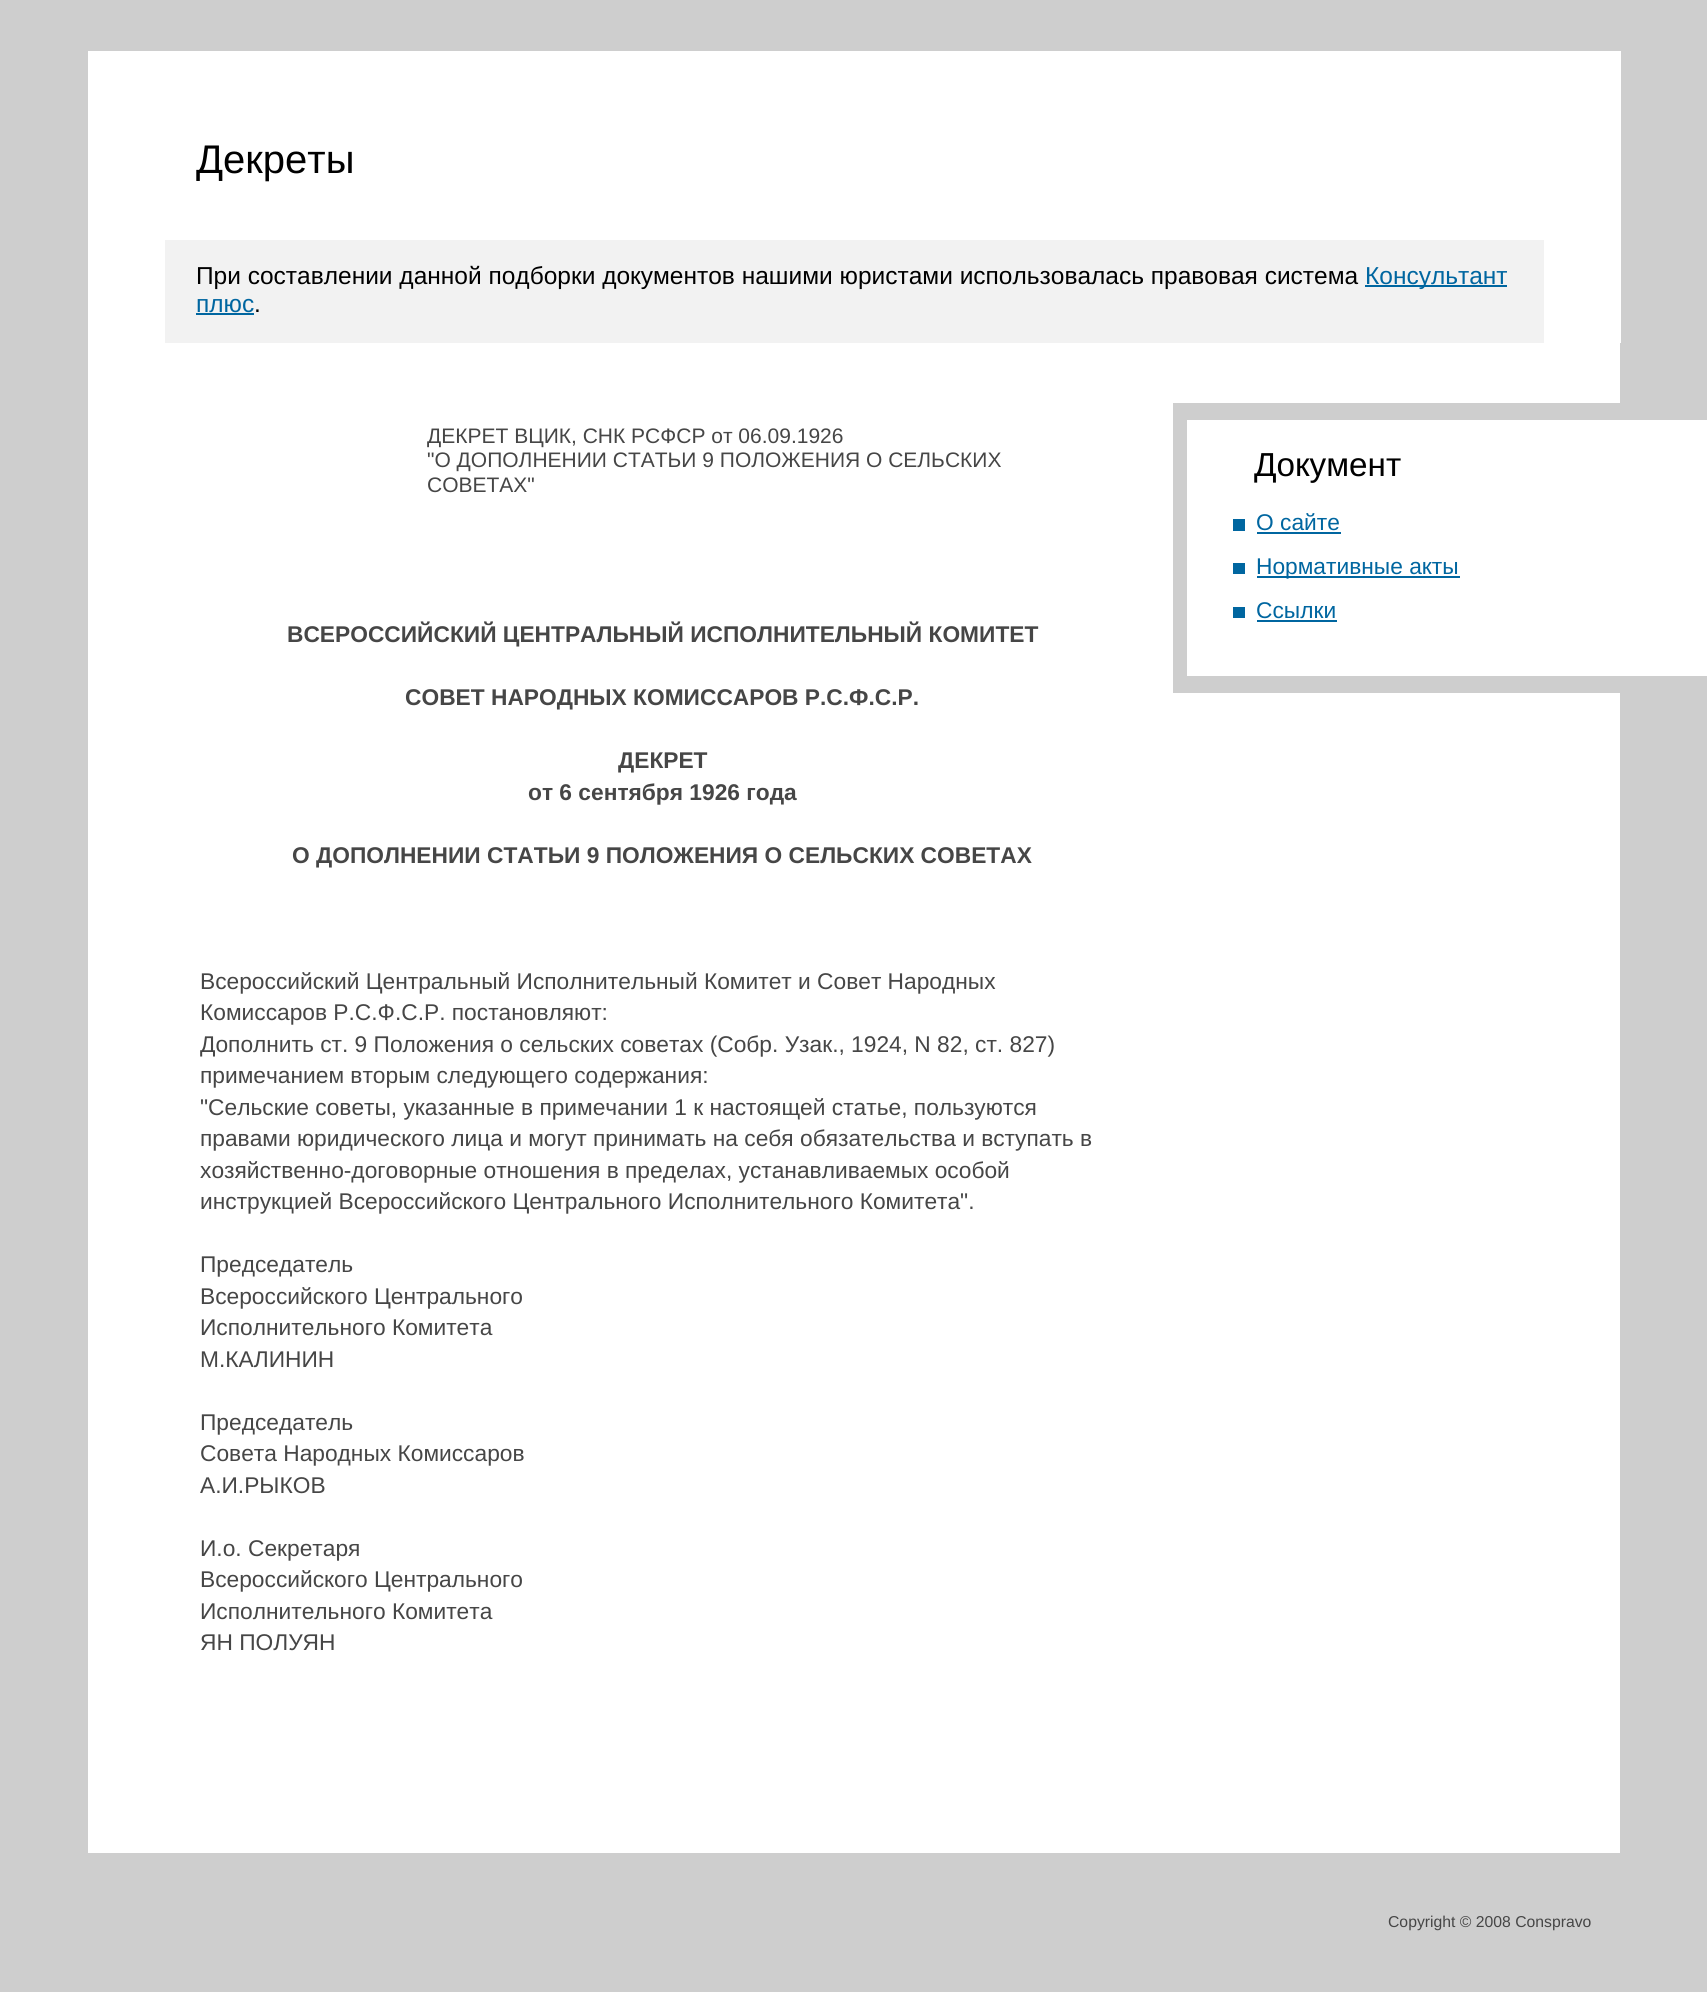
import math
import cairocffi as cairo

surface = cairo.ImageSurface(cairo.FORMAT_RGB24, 1707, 1992)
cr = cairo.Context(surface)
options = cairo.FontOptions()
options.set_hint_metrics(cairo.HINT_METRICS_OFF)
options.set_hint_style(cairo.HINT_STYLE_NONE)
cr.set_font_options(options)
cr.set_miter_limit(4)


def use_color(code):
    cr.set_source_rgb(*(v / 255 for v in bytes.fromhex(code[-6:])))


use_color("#cecece")
cr.paint()
use_color("#ffffff")
cr.rectangle(88, 51, 1533, 292)
cr.fill()
cr.select_font_face("Liberation Sans")
cr.set_font_size(40)
use_color("#000000")
cr.move_to(196, 173)
cr.show_text("Декреты")
use_color("#f2f2f2")
cr.rectangle(165, 240, 1379, 103)
cr.fill()
cr.set_font_size(24.5)
use_color("#000000")
cr.move_to(196, 284)
cr.show_text("При составлении данной подборки документов нашими юристами использовалась правовая система")
use_color("#0066a0")
cr.rectangle(1365, 285, 142, 2)
cr.fill()
cr.move_to(1365, 284)
cr.show_text("Консультант")
cr.move_to(196, 312)
cr.show_text("плюс")
cr.rectangle(196, 313, 58, 2)
cr.fill()
use_color("#000000")
cr.move_to(254, 312)
cr.show_text(".")
use_color("#ffffff")
cr.rectangle(88, 343, 1532, 1510)
cr.fill()
cr.set_font_size(21)
use_color("#464646")
cr.move_to(427, 443)
cr.show_text("ДЕКРЕТ ВЦИК, СНК РСФСР от 06.09.1926")
cr.move_to(427, 467)
cr.show_text("\"О ДОПОЛНЕНИИ СТАТЬИ 9 ПОЛОЖЕНИЯ О СЕЛЬСКИХ")
cr.move_to(427, 492)
cr.show_text("СОВЕТАХ\"")
cr.select_font_face("Liberation Sans", cairo.FONT_SLANT_NORMAL, cairo.FONT_WEIGHT_BOLD)
cr.set_font_size(22.75)
cr.move_to(287, 642)
cr.show_text("ВСЕРОССИЙСКИЙ ЦЕНТРАЛЬНЫЙ ИСПОЛНИТЕЛЬНЫЙ КОМИТЕТ")
cr.move_to(405, 705)
cr.show_text("СОВЕТ НАРОДНЫХ КОМИССАРОВ Р.С.Ф.С.Р.")
cr.move_to(618, 768)
cr.show_text("ДЕКРЕТ")
cr.move_to(528, 800)
cr.show_text("от 6 сентября 1926 года")
cr.move_to(292, 863)
cr.show_text("О ДОПОЛНЕНИИ СТАТЬИ 9 ПОЛОЖЕНИЯ О СЕЛЬСКИХ СОВЕТАХ")
cr.select_font_face("Liberation Sans")
cr.move_to(200, 989)
cr.show_text("Всероссийский Центральный Исполнительный Комитет и Совет Народных")
cr.move_to(200, 1020)
cr.show_text("Комиссаров Р.С.Ф.С.Р. постановляют:")
cr.move_to(200, 1052)
cr.show_text("Дополнить ст. 9 Положения о сельских советах (Собр. Узак., 1924, N 82, ст. 827)")
cr.move_to(200, 1083)
cr.show_text("примечанием вторым следующего содержания:")
cr.move_to(200, 1115)
cr.show_text("\"Сельские советы, указанные в примечании 1 к настоящей статье, пользуются")
cr.move_to(200, 1146)
cr.show_text("правами юридического лица и могут принимать на себя обязательства и вступать в")
cr.move_to(200, 1178)
cr.show_text("хозяйственно-договорные отношения в пределах, устанавливаемых особой")
cr.move_to(200, 1209)
cr.show_text("инструкцией Всероссийского Центрального Исполнительного Комитета\".")
cr.move_to(200, 1272)
cr.show_text("Председатель")
cr.move_to(200, 1304)
cr.show_text("Всероссийского Центрального")
cr.move_to(200, 1335)
cr.show_text("Исполнительного Комитета")
cr.move_to(200, 1367)
cr.show_text("М.КАЛИНИН")
cr.move_to(200, 1430)
cr.show_text("Председатель")
cr.move_to(200, 1461)
cr.show_text("Совета Народных Комиссаров")
cr.move_to(200, 1493)
cr.show_text("А.И.РЫКОВ")
cr.move_to(200, 1556)
cr.show_text("И.о. Секретаря")
cr.move_to(200, 1587)
cr.show_text("Всероссийского Центрального")
cr.move_to(200, 1619)
cr.show_text("Исполнительного Комитета")
cr.move_to(200, 1650)
cr.show_text("ЯН ПОЛУЯН")
use_color("#ffffff")
cr.rectangle(1620, 420, 87, 256)
cr.fill()
use_color("#cecece")
cr.rectangle(1187, 403, 433, 17)
cr.fill()
cr.rectangle(1187, 676, 433, 17)
cr.fill()
cr.rectangle(1173, 403, 14, 290)
cr.fill()
cr.set_font_size(33.25)
use_color("#000000")
cr.move_to(1254, 476)
cr.show_text("Документ")
use_color("#0066a0")
cr.rectangle(1233, 519, 12, 12)
cr.fill()
cr.set_font_size(22.75)
cr.move_to(1256, 530)
cr.show_text("О сайте")
cr.rectangle(1257, 532, 84, 2)
cr.fill()
cr.rectangle(1233, 563, 12, 11)
cr.fill()
cr.rectangle(1257, 576, 203, 2)
cr.fill()
cr.move_to(1256, 574)
cr.show_text("Нормативные акты")
cr.rectangle(1233, 607, 12, 11)
cr.fill()
cr.move_to(1256, 618)
cr.show_text("Ссылки")
cr.rectangle(1257, 620, 80, 2)
cr.fill()
cr.set_font_size(15.75)
use_color("#464646")
cr.move_to(1388, 1927)
cr.show_text("Copyright © 2008 Conspravo")
surface.write_to_png("result.png")
